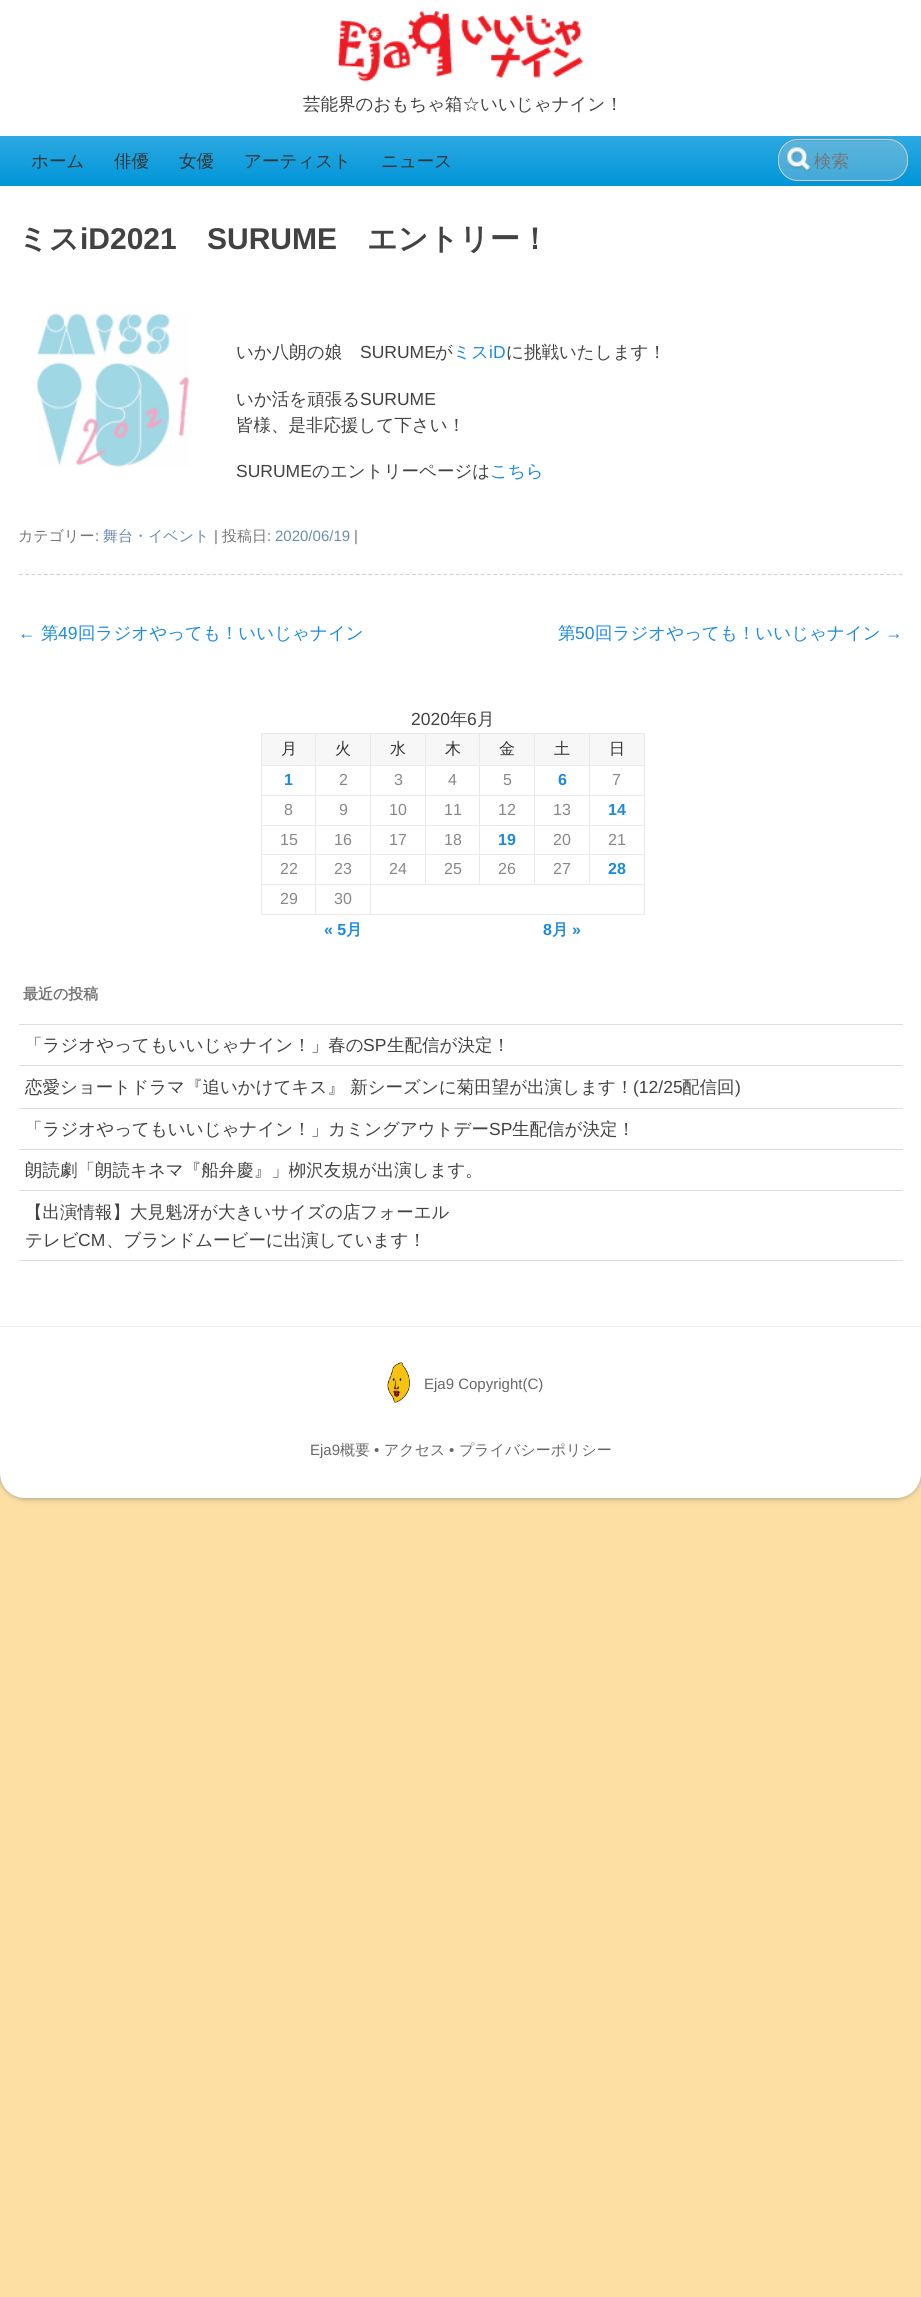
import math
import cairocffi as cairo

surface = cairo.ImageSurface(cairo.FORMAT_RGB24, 921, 2297)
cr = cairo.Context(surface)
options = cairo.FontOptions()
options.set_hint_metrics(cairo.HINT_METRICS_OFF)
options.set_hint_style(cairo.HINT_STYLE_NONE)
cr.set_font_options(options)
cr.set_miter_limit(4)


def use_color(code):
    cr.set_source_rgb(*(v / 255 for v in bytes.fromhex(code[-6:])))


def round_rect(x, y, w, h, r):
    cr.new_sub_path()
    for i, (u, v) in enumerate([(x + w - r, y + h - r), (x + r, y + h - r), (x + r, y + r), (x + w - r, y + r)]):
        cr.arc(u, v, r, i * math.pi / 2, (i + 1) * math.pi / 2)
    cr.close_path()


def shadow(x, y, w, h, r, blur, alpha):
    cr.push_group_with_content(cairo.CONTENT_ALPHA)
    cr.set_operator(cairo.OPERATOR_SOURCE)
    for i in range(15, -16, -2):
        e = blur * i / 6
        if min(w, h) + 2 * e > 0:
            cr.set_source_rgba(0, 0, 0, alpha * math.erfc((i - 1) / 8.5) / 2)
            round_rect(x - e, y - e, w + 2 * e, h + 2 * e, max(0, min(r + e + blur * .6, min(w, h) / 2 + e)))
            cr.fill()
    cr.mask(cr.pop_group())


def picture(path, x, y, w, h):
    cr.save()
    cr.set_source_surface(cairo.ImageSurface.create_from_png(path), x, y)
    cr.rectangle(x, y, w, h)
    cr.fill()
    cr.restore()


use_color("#fddfa3")
cr.paint()
use_color("#646464")
shadow(0, 0, 921, 1498, 25, 3, 0.7)
use_color("#ffffff")
cr.new_path()
cr.move_to(0, 0)
cr.line_to(921, 0)
cr.line_to(921, 1473)
cr.curve_to(921, 1487, 910, 1498, 896, 1498)
cr.line_to(25, 1498)
cr.curve_to(11, 1498, 0, 1487, 0, 1473)
cr.close_path()
cr.fill()
picture("img1.png", 338, 11, 246, 71)
cr.select_font_face("WenQuanYi Zen Hei Medium")
cr.set_font_size(17.5)
use_color("#424242")
cr.move_to(303, 110)
cr.show_text("芸能界のおもちゃ箱☆いいじゃナイン！")
gradient = cairo.LinearGradient(461, 136, 461, 186)
gradient.add_color_stop_rgba(0, 0.173, 0.663, 0.882, 1)
gradient.add_color_stop_rgba(1, 0, 0.584, 0.851, 1)
cr.set_source(gradient)
cr.rectangle(0, 136, 921, 50)
cr.fill()
use_color("#333333")
cr.move_to(31, 167)
cr.show_text("ホーム")
cr.move_to(114, 167)
cr.show_text("俳優")
cr.move_to(179, 167)
cr.show_text("女優")
cr.move_to(244, 167)
cr.show_text("アーティスト")
cr.move_to(381, 167)
cr.show_text("ニュース")
cr.set_source_rgba(0.824, 0.824, 0.824, 0.3)
round_rect(778, 139, 130, 42, 20)
cr.fill()
picture("img2.png", 786, 146, 26, 27)
cr.set_source_rgba(0, 0, 0, 0.07)
cr.new_path()
cr.move_to(798, 141)
cr.line_to(888, 141)
cr.curve_to(898, 141, 906, 150, 906, 160)
cr.line_to(906, 159)
cr.curve_to(906, 149, 897, 140, 887, 140)
cr.line_to(798, 140)
cr.curve_to(788, 140, 779, 149, 779, 159)
cr.line_to(779, 160)
cr.curve_to(779, 150, 787, 141, 798, 141)
cr.close_path()
cr.fill()
round_rect(778.5, 139.5, 129, 41, 19.5)
use_color("#cccccc")
cr.set_line_width(1)
cr.stroke()
use_color("#757575")
cr.move_to(814, 167)
cr.show_text("検索")
cr.new_path()
cr.move_to(19, 574.5)
cr.line_to(902.5, 574.5)
use_color("#d1d3d5")
cr.set_line_width(1.2)
cr.set_dash([3.75, 2.49])
cr.stroke()
cr.select_font_face("WenQuanYi Zen Hei", cairo.FONT_SLANT_NORMAL, cairo.FONT_WEIGHT_BOLD)
cr.set_font_size(30)
use_color("#424242")
cr.move_to(18, 249)
cr.show_text("ミス")
cr.select_font_face("Liberation Sans", cairo.FONT_SLANT_NORMAL, cairo.FONT_WEIGHT_BOLD)
cr.move_to(80, 249)
cr.show_text("iD2021")
cr.move_to(207, 249)
cr.show_text("SURUME")
cr.select_font_face("WenQuanYi Zen Hei", cairo.FONT_SLANT_NORMAL, cairo.FONT_WEIGHT_BOLD)
cr.move_to(367, 249)
cr.show_text("エントリー！")
picture("img3.png", 36, 313, 154, 154)
cr.select_font_face("WenQuanYi Zen Hei Medium")
cr.set_font_size(17.5)
cr.move_to(236, 358)
cr.show_text("いか八朗の娘")
cr.select_font_face("Liberation Sans")
cr.move_to(360, 358)
cr.show_text("SURUME")
cr.select_font_face("WenQuanYi Zen Hei Medium")
cr.move_to(435, 358)
cr.show_text("が")
use_color("#1b8be0")
cr.move_to(453, 358)
cr.show_text("ミス")
cr.select_font_face("Liberation Sans")
cr.move_to(489, 358)
cr.show_text("iD")
cr.select_font_face("WenQuanYi Zen Hei Medium")
use_color("#424242")
cr.move_to(506, 358)
cr.show_text("に挑戦いたします！")
cr.move_to(236, 405)
cr.show_text("いか活を頑張る")
cr.select_font_face("Liberation Sans")
cr.move_to(360, 405)
cr.show_text("SURUME")
cr.select_font_face("WenQuanYi Zen Hei Medium")
cr.move_to(236, 431)
cr.show_text("皆様、是非応援して下さい！")
cr.select_font_face("Liberation Sans")
cr.move_to(236, 477)
cr.show_text("SURUME")
cr.select_font_face("WenQuanYi Zen Hei Medium")
cr.move_to(312, 477)
cr.show_text("のエントリーページは")
use_color("#1b8be0")
cr.move_to(490, 477)
cr.show_text("こちら")
cr.set_font_size(15)
use_color("#757575")
cr.move_to(18, 541)
cr.show_text("カテゴリー")
cr.select_font_face("Liberation Sans")
cr.move_to(95, 541)
cr.show_text(":")
cr.select_font_face("WenQuanYi Zen Hei Medium")
use_color("#6d8dad")
cr.move_to(103, 541)
cr.show_text("舞台・イベント")
cr.select_font_face("Liberation Sans")
use_color("#757575")
cr.move_to(214, 541)
cr.show_text("|")
cr.select_font_face("WenQuanYi Zen Hei Medium")
cr.move_to(222, 541)
cr.show_text("投稿日")
cr.select_font_face("Liberation Sans")
cr.move_to(267, 541)
cr.show_text(":")
use_color("#6d8dad")
cr.move_to(275, 541)
cr.show_text("2020/06/19")
use_color("#757575")
cr.move_to(354, 541)
cr.show_text("|")
cr.set_font_size(17.5)
use_color("#1b8be0")
cr.move_to(18, 639)
cr.show_text("←")
cr.select_font_face("WenQuanYi Zen Hei Medium")
cr.move_to(41, 639)
cr.show_text("第")
cr.select_font_face("Liberation Sans")
cr.move_to(58, 639)
cr.show_text("49")
cr.select_font_face("WenQuanYi Zen Hei Medium")
cr.move_to(78, 639)
cr.show_text("回ラジオやっても！いいじゃナイン")
cr.move_to(558, 639)
cr.show_text("第")
cr.select_font_face("Liberation Sans")
cr.move_to(575, 639)
cr.show_text("50")
cr.select_font_face("WenQuanYi Zen Hei Medium")
cr.move_to(595, 639)
cr.show_text("回ラジオやっても！いいじゃナイン")
cr.select_font_face("Liberation Sans")
cr.move_to(885, 639)
cr.show_text("→")
use_color("#424242")
cr.move_to(411, 725)
cr.show_text("2020")
cr.select_font_face("WenQuanYi Zen Hei Medium")
cr.move_to(450, 725)
cr.show_text("年")
cr.select_font_face("Liberation Sans")
cr.move_to(467, 725)
cr.show_text("6")
cr.select_font_face("WenQuanYi Zen Hei Medium")
cr.move_to(477, 725)
cr.show_text("月")
use_color("#f7f7f7")
cr.rectangle(262, 734, 53, 31)
cr.fill()
use_color("#eaeaea")
cr.rectangle(589, 733, 56, 1)
cr.fill()
cr.rectangle(589, 765, 56, 1)
cr.fill()
cr.rectangle(589, 795, 56, 1)
cr.fill()
cr.rectangle(589, 825, 56, 1)
cr.fill()
cr.rectangle(589, 854, 56, 1)
cr.fill()
cr.rectangle(370, 884, 275, 1)
cr.fill()
cr.rectangle(589, 854, 1, 31)
cr.fill()
cr.rectangle(534, 854, 56, 1)
cr.fill()
cr.rectangle(589, 825, 1, 30)
cr.fill()
cr.rectangle(534, 825, 56, 1)
cr.fill()
cr.rectangle(589, 795, 1, 31)
cr.fill()
cr.rectangle(534, 795, 56, 1)
cr.fill()
cr.rectangle(589, 765, 1, 31)
cr.fill()
cr.rectangle(534, 765, 56, 1)
cr.fill()
cr.rectangle(589, 733, 1, 33)
cr.fill()
cr.rectangle(534, 733, 56, 1)
cr.fill()
cr.rectangle(534, 854, 1, 31)
cr.fill()
cr.rectangle(479, 854, 56, 1)
cr.fill()
cr.rectangle(534, 825, 1, 30)
cr.fill()
cr.rectangle(479, 825, 56, 1)
cr.fill()
cr.rectangle(534, 795, 1, 31)
cr.fill()
cr.rectangle(479, 795, 56, 1)
cr.fill()
cr.rectangle(534, 765, 1, 31)
cr.fill()
cr.rectangle(479, 765, 56, 1)
cr.fill()
cr.rectangle(534, 733, 1, 33)
cr.fill()
cr.rectangle(479, 733, 56, 1)
cr.fill()
cr.rectangle(479, 854, 1, 31)
cr.fill()
cr.rectangle(425, 854, 55, 1)
cr.fill()
cr.rectangle(479, 825, 1, 30)
cr.fill()
cr.rectangle(425, 825, 55, 1)
cr.fill()
cr.rectangle(479, 795, 1, 31)
cr.fill()
cr.rectangle(425, 795, 55, 1)
cr.fill()
cr.rectangle(479, 765, 1, 31)
cr.fill()
cr.rectangle(425, 765, 55, 1)
cr.fill()
cr.rectangle(479, 733, 1, 33)
cr.fill()
cr.rectangle(425, 733, 55, 1)
cr.fill()
cr.rectangle(425, 854, 1, 31)
cr.fill()
cr.rectangle(370, 854, 56, 1)
cr.fill()
cr.rectangle(425, 825, 1, 30)
cr.fill()
cr.rectangle(370, 825, 56, 1)
cr.fill()
cr.rectangle(425, 795, 1, 31)
cr.fill()
cr.rectangle(370, 795, 56, 1)
cr.fill()
cr.rectangle(425, 765, 1, 31)
cr.fill()
cr.rectangle(370, 765, 56, 1)
cr.fill()
cr.rectangle(425, 733, 1, 33)
cr.fill()
cr.rectangle(370, 733, 56, 1)
cr.fill()
cr.rectangle(644, 884, 1, 31)
cr.fill()
cr.rectangle(370, 914, 275, 1)
cr.fill()
cr.rectangle(370, 884, 1, 31)
cr.fill()
cr.rectangle(315, 884, 56, 1)
cr.fill()
cr.rectangle(370, 854, 1, 31)
cr.fill()
cr.rectangle(315, 854, 56, 1)
cr.fill()
cr.rectangle(370, 825, 1, 30)
cr.fill()
cr.rectangle(315, 825, 56, 1)
cr.fill()
cr.rectangle(370, 795, 1, 31)
cr.fill()
cr.rectangle(315, 795, 56, 1)
cr.fill()
cr.rectangle(370, 765, 1, 31)
cr.fill()
cr.rectangle(315, 765, 56, 1)
cr.fill()
cr.rectangle(370, 733, 1, 33)
cr.fill()
cr.rectangle(315, 733, 56, 1)
cr.fill()
cr.rectangle(315, 914, 56, 1)
cr.fill()
cr.rectangle(315, 884, 1, 31)
cr.fill()
cr.rectangle(261, 884, 55, 1)
cr.fill()
cr.rectangle(315, 854, 1, 31)
cr.fill()
cr.rectangle(261, 854, 55, 1)
cr.fill()
cr.rectangle(315, 825, 1, 30)
cr.fill()
cr.rectangle(261, 825, 55, 1)
cr.fill()
cr.rectangle(315, 795, 1, 31)
cr.fill()
cr.rectangle(261, 795, 55, 1)
cr.fill()
cr.rectangle(315, 765, 1, 31)
cr.fill()
cr.rectangle(261, 765, 55, 1)
cr.fill()
cr.rectangle(315, 733, 1, 33)
cr.fill()
cr.rectangle(261, 733, 55, 1)
cr.fill()
cr.rectangle(261, 914, 55, 1)
cr.fill()
cr.rectangle(261, 884, 1, 31)
cr.fill()
cr.rectangle(261, 854, 1, 31)
cr.fill()
cr.rectangle(261, 825, 1, 30)
cr.fill()
cr.rectangle(261, 795, 1, 31)
cr.fill()
cr.rectangle(261, 765, 1, 31)
cr.fill()
cr.rectangle(261, 733, 1, 33)
cr.fill()
cr.set_font_size(16)
use_color("#333333")
cr.move_to(281, 754)
cr.show_text("月")
use_color("#f7f7f7")
cr.rectangle(316, 734, 54, 31)
cr.fill()
use_color("#333333")
cr.move_to(335, 754)
cr.show_text("火")
use_color("#f7f7f7")
cr.rectangle(371, 734, 54, 31)
cr.fill()
use_color("#333333")
cr.move_to(390, 754)
cr.show_text("水")
use_color("#f7f7f7")
cr.rectangle(426, 734, 53, 31)
cr.fill()
use_color("#333333")
cr.move_to(445, 754)
cr.show_text("木")
use_color("#f7f7f7")
cr.rectangle(480, 734, 54, 31)
cr.fill()
use_color("#333333")
cr.move_to(499, 754)
cr.show_text("金")
use_color("#f7f7f7")
cr.rectangle(535, 734, 54, 31)
cr.fill()
use_color("#333333")
cr.move_to(554, 754)
cr.show_text("土")
use_color("#f7f7f7")
cr.rectangle(590, 734, 54, 31)
cr.fill()
use_color("#eaeaea")
cr.rectangle(644, 854, 1, 31)
cr.fill()
cr.rectangle(644, 825, 1, 30)
cr.fill()
cr.rectangle(644, 795, 1, 31)
cr.fill()
cr.rectangle(644, 765, 1, 31)
cr.fill()
cr.rectangle(644, 733, 1, 33)
cr.fill()
use_color("#333333")
cr.move_to(609, 754)
cr.show_text("日")
cr.select_font_face("Liberation Sans", cairo.FONT_SLANT_NORMAL, cairo.FONT_WEIGHT_BOLD)
use_color("#1b8be0")
cr.move_to(284, 785)
cr.show_text("1")
cr.select_font_face("Liberation Sans")
use_color("#888888")
cr.move_to(339, 785)
cr.show_text("2")
cr.move_to(394, 785)
cr.show_text("3")
cr.move_to(448, 785)
cr.show_text("4")
cr.move_to(503, 785)
cr.show_text("5")
cr.select_font_face("Liberation Sans", cairo.FONT_SLANT_NORMAL, cairo.FONT_WEIGHT_BOLD)
use_color("#1b8be0")
cr.move_to(558, 785)
cr.show_text("6")
cr.select_font_face("Liberation Sans")
use_color("#888888")
cr.move_to(612, 785)
cr.show_text("7")
cr.move_to(284, 815)
cr.show_text("8")
cr.move_to(339, 815)
cr.show_text("9")
cr.move_to(389, 815)
cr.show_text("10")
cr.move_to(444, 815)
cr.show_text("11")
cr.move_to(498, 815)
cr.show_text("12")
cr.move_to(553, 815)
cr.show_text("13")
cr.select_font_face("Liberation Sans", cairo.FONT_SLANT_NORMAL, cairo.FONT_WEIGHT_BOLD)
use_color("#1b8be0")
cr.move_to(608, 815)
cr.show_text("14")
cr.select_font_face("Liberation Sans")
use_color("#888888")
cr.move_to(280, 845)
cr.show_text("15")
cr.move_to(334, 845)
cr.show_text("16")
cr.move_to(389, 845)
cr.show_text("17")
cr.move_to(444, 845)
cr.show_text("18")
cr.select_font_face("Liberation Sans", cairo.FONT_SLANT_NORMAL, cairo.FONT_WEIGHT_BOLD)
use_color("#1b8be0")
cr.move_to(498, 845)
cr.show_text("19")
cr.select_font_face("Liberation Sans")
use_color("#888888")
cr.move_to(553, 845)
cr.show_text("20")
cr.move_to(608, 845)
cr.show_text("21")
cr.move_to(280, 874)
cr.show_text("22")
cr.move_to(334, 874)
cr.show_text("23")
cr.move_to(389, 874)
cr.show_text("24")
cr.move_to(444, 874)
cr.show_text("25")
cr.move_to(498, 874)
cr.show_text("26")
cr.move_to(553, 874)
cr.show_text("27")
cr.select_font_face("Liberation Sans", cairo.FONT_SLANT_NORMAL, cairo.FONT_WEIGHT_BOLD)
use_color("#1b8be0")
cr.move_to(608, 874)
cr.show_text("28")
cr.select_font_face("Liberation Sans")
use_color("#888888")
cr.move_to(280, 904)
cr.show_text("29")
cr.move_to(334, 904)
cr.show_text("30")
cr.select_font_face("Liberation Sans", cairo.FONT_SLANT_NORMAL, cairo.FONT_WEIGHT_BOLD)
use_color("#1b8be0")
cr.move_to(324, 935)
cr.show_text("« 5")
cr.select_font_face("WenQuanYi Zen Hei", cairo.FONT_SLANT_NORMAL, cairo.FONT_WEIGHT_BOLD)
cr.move_to(346, 935)
cr.show_text("月")
cr.select_font_face("Liberation Sans", cairo.FONT_SLANT_NORMAL, cairo.FONT_WEIGHT_BOLD)
cr.move_to(543, 935)
cr.show_text("8")
cr.select_font_face("WenQuanYi Zen Hei", cairo.FONT_SLANT_NORMAL, cairo.FONT_WEIGHT_BOLD)
cr.move_to(552, 935)
cr.show_text("月")
cr.select_font_face("Liberation Sans", cairo.FONT_SLANT_NORMAL, cairo.FONT_WEIGHT_BOLD)
cr.move_to(572, 935)
cr.show_text("»")
cr.select_font_face("WenQuanYi Zen Hei", cairo.FONT_SLANT_NORMAL, cairo.FONT_WEIGHT_BOLD)
cr.set_font_size(15)
use_color("#757575")
cr.move_to(23, 999)
cr.show_text("最近の投稿")
use_color("#dedede")
cr.rectangle(19, 1260, 884, 1)
cr.fill()
cr.rectangle(19, 1024, 884, 1)
cr.fill()
cr.select_font_face("WenQuanYi Zen Hei Medium")
cr.set_font_size(17.5)
use_color("#424242")
cr.move_to(25, 1051)
cr.show_text("「ラジオやってもいいじゃナイン！」春の")
cr.select_font_face("Liberation Sans")
cr.move_to(363, 1051)
cr.show_text("SP")
cr.select_font_face("WenQuanYi Zen Hei Medium")
cr.move_to(387, 1051)
cr.show_text("生配信が決定！")
use_color("#dedede")
cr.rectangle(19, 1065, 884, 1)
cr.fill()
use_color("#424242")
cr.move_to(25, 1093)
cr.show_text("恋愛ショートドラマ『追いかけてキス』 新シーズンに菊田望が出演します！")
cr.select_font_face("Liberation Sans")
cr.move_to(633, 1093)
cr.show_text("(12/25")
cr.select_font_face("WenQuanYi Zen Hei Medium")
cr.move_to(682, 1093)
cr.show_text("配信回")
cr.select_font_face("Liberation Sans")
cr.move_to(735, 1093)
cr.show_text(")")
use_color("#dedede")
cr.rectangle(19, 1108, 884, 1)
cr.fill()
cr.select_font_face("WenQuanYi Zen Hei Medium")
use_color("#424242")
cr.move_to(25, 1135)
cr.show_text("「ラジオやってもいいじゃナイン！」カミングアウトデー")
cr.select_font_face("Liberation Sans")
cr.move_to(489, 1135)
cr.show_text("SP")
cr.select_font_face("WenQuanYi Zen Hei Medium")
cr.move_to(512, 1135)
cr.show_text("生配信が決定！")
use_color("#dedede")
cr.rectangle(19, 1149, 884, 1)
cr.fill()
use_color("#424242")
cr.move_to(25, 1176)
cr.show_text("朗読劇「朗読キネマ『船弁慶』」栁沢友規が出演します。")
use_color("#dedede")
cr.rectangle(19, 1190, 884, 1)
cr.fill()
use_color("#424242")
cr.move_to(25, 1218)
cr.show_text("【出演情報】大見魁冴が大きいサイズの店フォーエル")
cr.move_to(25, 1246)
cr.show_text("テレビ")
cr.select_font_face("Liberation Sans")
cr.move_to(78, 1246)
cr.show_text("CM")
cr.select_font_face("WenQuanYi Zen Hei Medium")
cr.move_to(106, 1246)
cr.show_text("、ブランドムービーに出演しています！")
use_color("#ededed")
cr.rectangle(0, 1326, 921, 1)
cr.fill()
picture("img4.png", 387, 1362, 23, 41)
cr.select_font_face("Liberation Sans")
cr.set_font_size(15)
use_color("#686868")
cr.move_to(424, 1389)
cr.show_text("Eja9 Copyright(C)")
cr.move_to(310, 1455)
cr.show_text("Eja9")
cr.select_font_face("WenQuanYi Zen Hei Medium")
cr.move_to(340, 1455)
cr.show_text("概要")
cr.select_font_face("Liberation Sans")
cr.move_to(374, 1455)
cr.show_text("•")
cr.select_font_face("WenQuanYi Zen Hei Medium")
cr.move_to(384, 1455)
cr.show_text("アクセス")
cr.select_font_face("Liberation Sans")
cr.move_to(449, 1455)
cr.show_text("•")
cr.select_font_face("WenQuanYi Zen Hei Medium")
cr.move_to(459, 1455)
cr.show_text("プライバシーポリシー")
surface.write_to_png("result.png")
